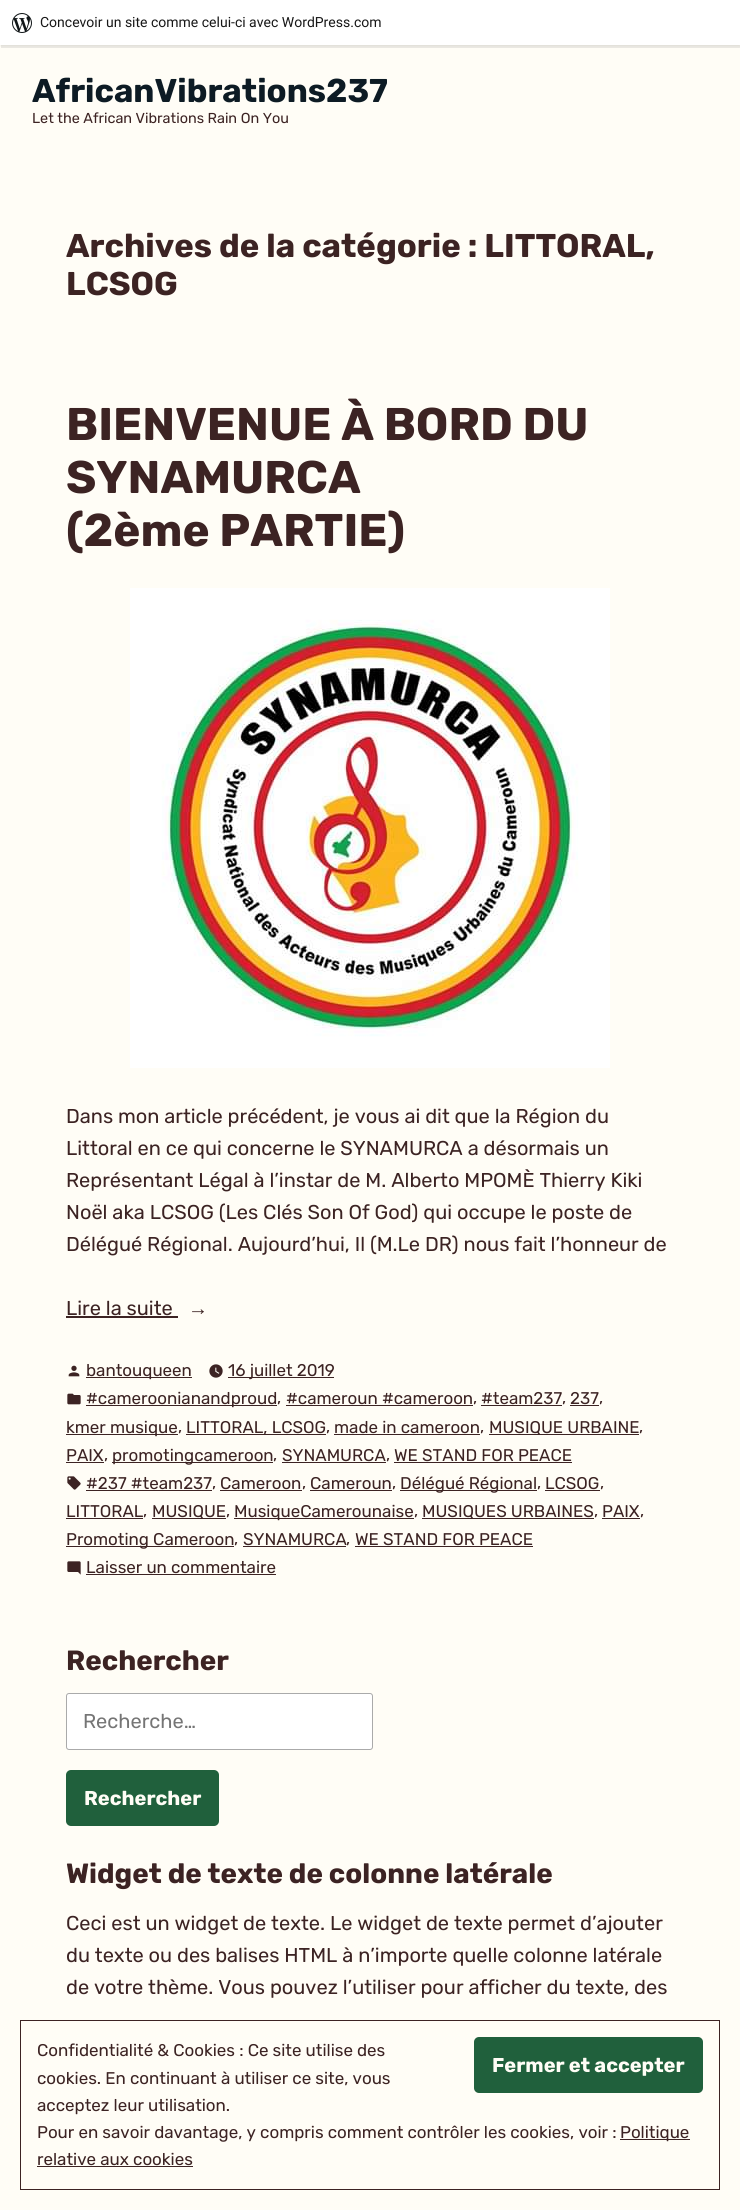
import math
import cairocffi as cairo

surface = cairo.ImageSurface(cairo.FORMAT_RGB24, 740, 2210)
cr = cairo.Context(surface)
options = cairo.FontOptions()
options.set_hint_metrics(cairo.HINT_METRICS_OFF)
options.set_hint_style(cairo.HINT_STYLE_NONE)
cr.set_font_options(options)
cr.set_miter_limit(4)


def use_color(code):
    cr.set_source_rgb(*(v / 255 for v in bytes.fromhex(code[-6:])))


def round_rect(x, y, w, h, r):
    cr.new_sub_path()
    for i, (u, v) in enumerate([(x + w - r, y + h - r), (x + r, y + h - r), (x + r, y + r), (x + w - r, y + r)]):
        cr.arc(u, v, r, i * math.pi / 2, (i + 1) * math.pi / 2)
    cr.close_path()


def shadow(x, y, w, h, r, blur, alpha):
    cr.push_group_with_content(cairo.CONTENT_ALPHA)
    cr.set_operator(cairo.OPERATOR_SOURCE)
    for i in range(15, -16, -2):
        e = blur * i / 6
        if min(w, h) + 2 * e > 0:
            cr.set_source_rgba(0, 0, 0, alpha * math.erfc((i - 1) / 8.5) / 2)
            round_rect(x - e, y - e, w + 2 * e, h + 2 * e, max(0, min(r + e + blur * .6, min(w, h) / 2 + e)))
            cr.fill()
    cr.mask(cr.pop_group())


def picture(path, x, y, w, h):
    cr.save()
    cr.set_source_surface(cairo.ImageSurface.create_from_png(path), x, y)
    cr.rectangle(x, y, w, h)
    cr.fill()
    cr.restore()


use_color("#fffdf6")
cr.paint()
use_color("#000000")
shadow(0, 1, 740, 45, 0, 1, 0.05)
cr.set_source_rgba(0, 0, 0, 0.08)
cr.new_path()
cr.move_to(1, 45)
cr.line_to(1, 48)
cr.line_to(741, 48)
cr.line_to(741, 3)
cr.line_to(740, 3)
cr.line_to(740, 45)
cr.close_path()
cr.fill()
use_color("#ffffff")
cr.rectangle(0, 0, 740, 45)
cr.fill()
picture("img1.png", 12, 13, 20, 20)
cr.select_font_face("Roboto")
cr.set_font_size(14)
use_color("#171717")
cr.move_to(40, 27)
cr.show_text("Concevoir un site comme celui-ci avec WordPress.com")
cr.select_font_face("Rubik", cairo.FONT_SLANT_NORMAL, cairo.FONT_WEIGHT_BOLD)
cr.set_font_size(32.9)
use_color("#0d1b24")
cr.move_to(32, 102)
cr.show_text("AfricanVibrations237")
cr.select_font_face("Rubik")
cr.set_font_size(14.4)
use_color("#3c2323")
cr.move_to(32, 123)
cr.show_text("Let the African Vibrations Rain On You")
cr.select_font_face("Rubik", cairo.FONT_SLANT_NORMAL, cairo.FONT_WEIGHT_BOLD)
cr.set_font_size(32.9)
cr.move_to(66, 257)
cr.show_text("Archives de la catégorie : LITTORAL,")
cr.move_to(66, 295)
cr.show_text("LCSOG")
cr.set_font_size(45.75)
cr.move_to(66, 440)
cr.show_text("BIENVENUE À BORD DU")
cr.move_to(66, 493)
cr.show_text("SYNAMURCA")
cr.move_to(66, 546)
cr.show_text("(2ème PARTIE)")
picture("img2.png", 130, 588, 480, 480)
cr.select_font_face("Rubik")
cr.set_font_size(20)
cr.move_to(66, 1123)
cr.show_text("Dans mon article précédent, je vous ai dit que la Région du")
cr.move_to(66, 1155)
cr.show_text("Littoral en ce qui concerne le SYNAMURCA a désormais un")
cr.move_to(66, 1187)
cr.show_text("Représentant Légal à l’instar de M. Alberto MPOMÈ Thierry Kiki")
cr.move_to(66, 1219)
cr.show_text("Noël aka LCSOG (Les Clés Son Of God) qui occupe le poste de")
cr.move_to(66, 1251)
cr.show_text("Délégué Régional. Aujourd’hui, Il (M.Le DR) nous fait l’honneur de")
cr.move_to(66, 1315)
cr.show_text("Lire la suite")
cr.rectangle(66, 1316, 112, 2)
cr.fill()
cr.select_font_face("Liberation Sans")
cr.move_to(188, 1315)
cr.show_text("→")
picture("img3.png", 68, 1365, 12, 12)
cr.rectangle(86, 1377, 106, 1)
cr.fill()
cr.select_font_face("Rubik")
cr.set_font_size(16.95)
cr.move_to(86, 1376)
cr.show_text("bantouqueen")
picture("img4.png", 209, 1364, 14, 14)
cr.rectangle(228, 1377, 106, 1)
cr.fill()
cr.move_to(228, 1376)
cr.show_text("16 juillet 2019")
picture("img5.png", 67, 1393, 14, 12)
cr.rectangle(86, 1405, 191, 1)
cr.fill()
cr.move_to(86, 1404)
cr.show_text("#cameroonianandproud")
cr.move_to(277, 1403)
cr.show_text(",")
cr.move_to(286, 1404)
cr.show_text("#cameroun #cameroon")
cr.rectangle(286, 1405, 187, 1)
cr.fill()
cr.move_to(473, 1403)
cr.show_text(",")
cr.move_to(481, 1404)
cr.show_text("#team237")
cr.rectangle(481, 1405, 81, 1)
cr.fill()
cr.move_to(562, 1403)
cr.show_text(",")
cr.move_to(570, 1404)
cr.show_text("237")
cr.rectangle(570, 1405, 29, 1)
cr.fill()
cr.move_to(599, 1403)
cr.show_text(",")
cr.rectangle(66, 1434, 112, 1)
cr.fill()
cr.move_to(66, 1433)
cr.show_text("kmer musique")
cr.move_to(178, 1432)
cr.show_text(",")
cr.rectangle(186, 1434, 140, 1)
cr.fill()
cr.move_to(186, 1433)
cr.show_text("LITTORAL, LCSOG")
cr.move_to(326, 1432)
cr.show_text(",")
cr.move_to(334, 1433)
cr.show_text("made in cameroon")
cr.rectangle(334, 1434, 146, 1)
cr.fill()
cr.move_to(480, 1432)
cr.show_text(",")
cr.rectangle(489, 1434, 150, 1)
cr.fill()
cr.move_to(489, 1433)
cr.show_text("MUSIQUE URBAINE")
cr.move_to(639, 1432)
cr.show_text(",")
cr.move_to(66, 1461)
cr.show_text("PAIX")
cr.rectangle(66, 1462, 38, 1)
cr.fill()
cr.move_to(104, 1460)
cr.show_text(",")
cr.rectangle(112, 1462, 161, 1)
cr.fill()
cr.move_to(112, 1461)
cr.show_text("promotingcameroon")
cr.move_to(273, 1460)
cr.show_text(",")
cr.move_to(282, 1461)
cr.show_text("SYNAMURCA")
cr.rectangle(282, 1462, 104, 1)
cr.fill()
cr.move_to(386, 1460)
cr.show_text(",")
cr.move_to(394, 1461)
cr.show_text("WE STAND FOR PEACE")
cr.rectangle(394, 1462, 178, 1)
cr.fill()
picture("img6.png", 67, 1476, 14, 14)
cr.move_to(86, 1489)
cr.show_text("#237 #team237")
cr.rectangle(86, 1490, 126, 1)
cr.fill()
cr.move_to(212, 1488)
cr.show_text(",")
cr.move_to(220, 1489)
cr.show_text("Cameroon")
cr.rectangle(220, 1490, 82, 1)
cr.fill()
cr.move_to(302, 1488)
cr.show_text(",")
cr.move_to(310, 1489)
cr.show_text("Cameroun")
cr.rectangle(310, 1490, 82, 1)
cr.fill()
cr.move_to(392, 1488)
cr.show_text(",")
cr.rectangle(400, 1490, 137, 1)
cr.fill()
cr.move_to(400, 1489)
cr.show_text("Délégué Régional")
cr.move_to(537, 1488)
cr.show_text(",")
cr.move_to(545, 1489)
cr.show_text("LCSOG")
cr.rectangle(545, 1490, 55, 1)
cr.fill()
cr.move_to(600, 1488)
cr.show_text(",")
cr.move_to(66, 1517)
cr.show_text("LITTORAL")
cr.rectangle(66, 1518, 77, 1)
cr.fill()
cr.move_to(143, 1516)
cr.show_text(",")
cr.rectangle(152, 1518, 74, 1)
cr.fill()
cr.move_to(152, 1517)
cr.show_text("MUSIQUE")
cr.move_to(226, 1516)
cr.show_text(",")
cr.rectangle(234, 1518, 180, 1)
cr.fill()
cr.move_to(234, 1517)
cr.show_text("MusiqueCamerounaise")
cr.move_to(414, 1516)
cr.show_text(",")
cr.rectangle(422, 1518, 172, 1)
cr.fill()
cr.move_to(422, 1517)
cr.show_text("MUSIQUES URBAINES")
cr.move_to(594, 1516)
cr.show_text(",")
cr.move_to(602, 1517)
cr.show_text("PAIX")
cr.rectangle(602, 1518, 38, 1)
cr.fill()
cr.move_to(640, 1516)
cr.show_text(",")
cr.rectangle(66, 1546, 168, 1)
cr.fill()
cr.move_to(66, 1545)
cr.show_text("Promoting Cameroon")
cr.move_to(234, 1544)
cr.show_text(",")
cr.move_to(243, 1545)
cr.show_text("SYNAMURCA")
cr.rectangle(243, 1546, 103, 1)
cr.fill()
cr.move_to(346, 1544)
cr.show_text(",")
cr.move_to(355, 1545)
cr.show_text("WE STAND FOR PEACE")
cr.rectangle(355, 1546, 178, 1)
cr.fill()
picture("img7.png", 67, 1561, 14, 14)
cr.move_to(86, 1573)
cr.show_text("Laisser un commentaire")
cr.rectangle(86, 1574, 190, 1)
cr.fill()
cr.select_font_face("Rubik", cairo.FONT_SLANT_NORMAL, cairo.FONT_WEIGHT_BOLD)
cr.set_font_size(27.8)
cr.move_to(66, 1670)
cr.show_text("Rechercher")
use_color("#ffffff")
round_rect(66.5, 1693.5, 306, 56, 2.5)
cr.fill_preserve()
use_color("#aaaaaa")
cr.set_line_width(1)
cr.stroke()
cr.select_font_face("Rubik")
cr.set_font_size(20)
use_color("#757575")
cr.move_to(83, 1728)
cr.show_text("Recherche…")
use_color("#20603c")
round_rect(66, 1770, 153, 56, 5)
cr.fill()
cr.select_font_face("Rubik", cairo.FONT_SLANT_NORMAL, cairo.FONT_WEIGHT_BOLD)
use_color("#fffdf6")
cr.move_to(84, 1805)
cr.show_text("Rechercher")
cr.set_font_size(27.8)
use_color("#3c2323")
cr.move_to(66, 1883)
cr.show_text("Widget de texte de colonne latérale")
cr.select_font_face("Rubik")
cr.set_font_size(20)
cr.move_to(66, 1930)
cr.show_text("Ceci est un widget de texte. Le widget de texte permet d’ajouter")
cr.move_to(66, 1962)
cr.show_text("du texte ou des balises HTML à n’importe quelle colonne latérale")
cr.move_to(66, 1994)
cr.show_text("de votre thème. Vous pouvez l’utiliser pour afficher du texte, des")
cr.rectangle(20.5, 2020.5, 699, 169)
cr.stroke()
cr.set_font_size(16.95)
cr.move_to(37, 2056)
cr.show_text("Confidentialité & Cookies : Ce site utilise des")
use_color("#20603c")
round_rect(474, 2037, 229, 56, 5)
cr.fill()
cr.select_font_face("Rubik", cairo.FONT_SLANT_NORMAL, cairo.FONT_WEIGHT_BOLD)
cr.set_font_size(20)
use_color("#fffdf6")
cr.move_to(492, 2072)
cr.show_text("Fermer et accepter")
cr.select_font_face("Rubik")
cr.set_font_size(16.95)
use_color("#3c2323")
cr.move_to(37, 2084)
cr.show_text("cookies. En continuant à utiliser ce site, vous")
cr.move_to(37, 2111)
cr.show_text("acceptez leur utilisation.")
cr.move_to(37, 2138)
cr.show_text("Pour en savoir davantage, y compris comment contrôler les cookies, voir :")
cr.rectangle(620, 2139, 70, 1)
cr.fill()
cr.move_to(620, 2138)
cr.show_text("Politique")
cr.move_to(37, 2165)
cr.show_text("relative aux cookies")
cr.rectangle(37, 2166, 156, 1)
cr.fill()
surface.write_to_png("result.png")
